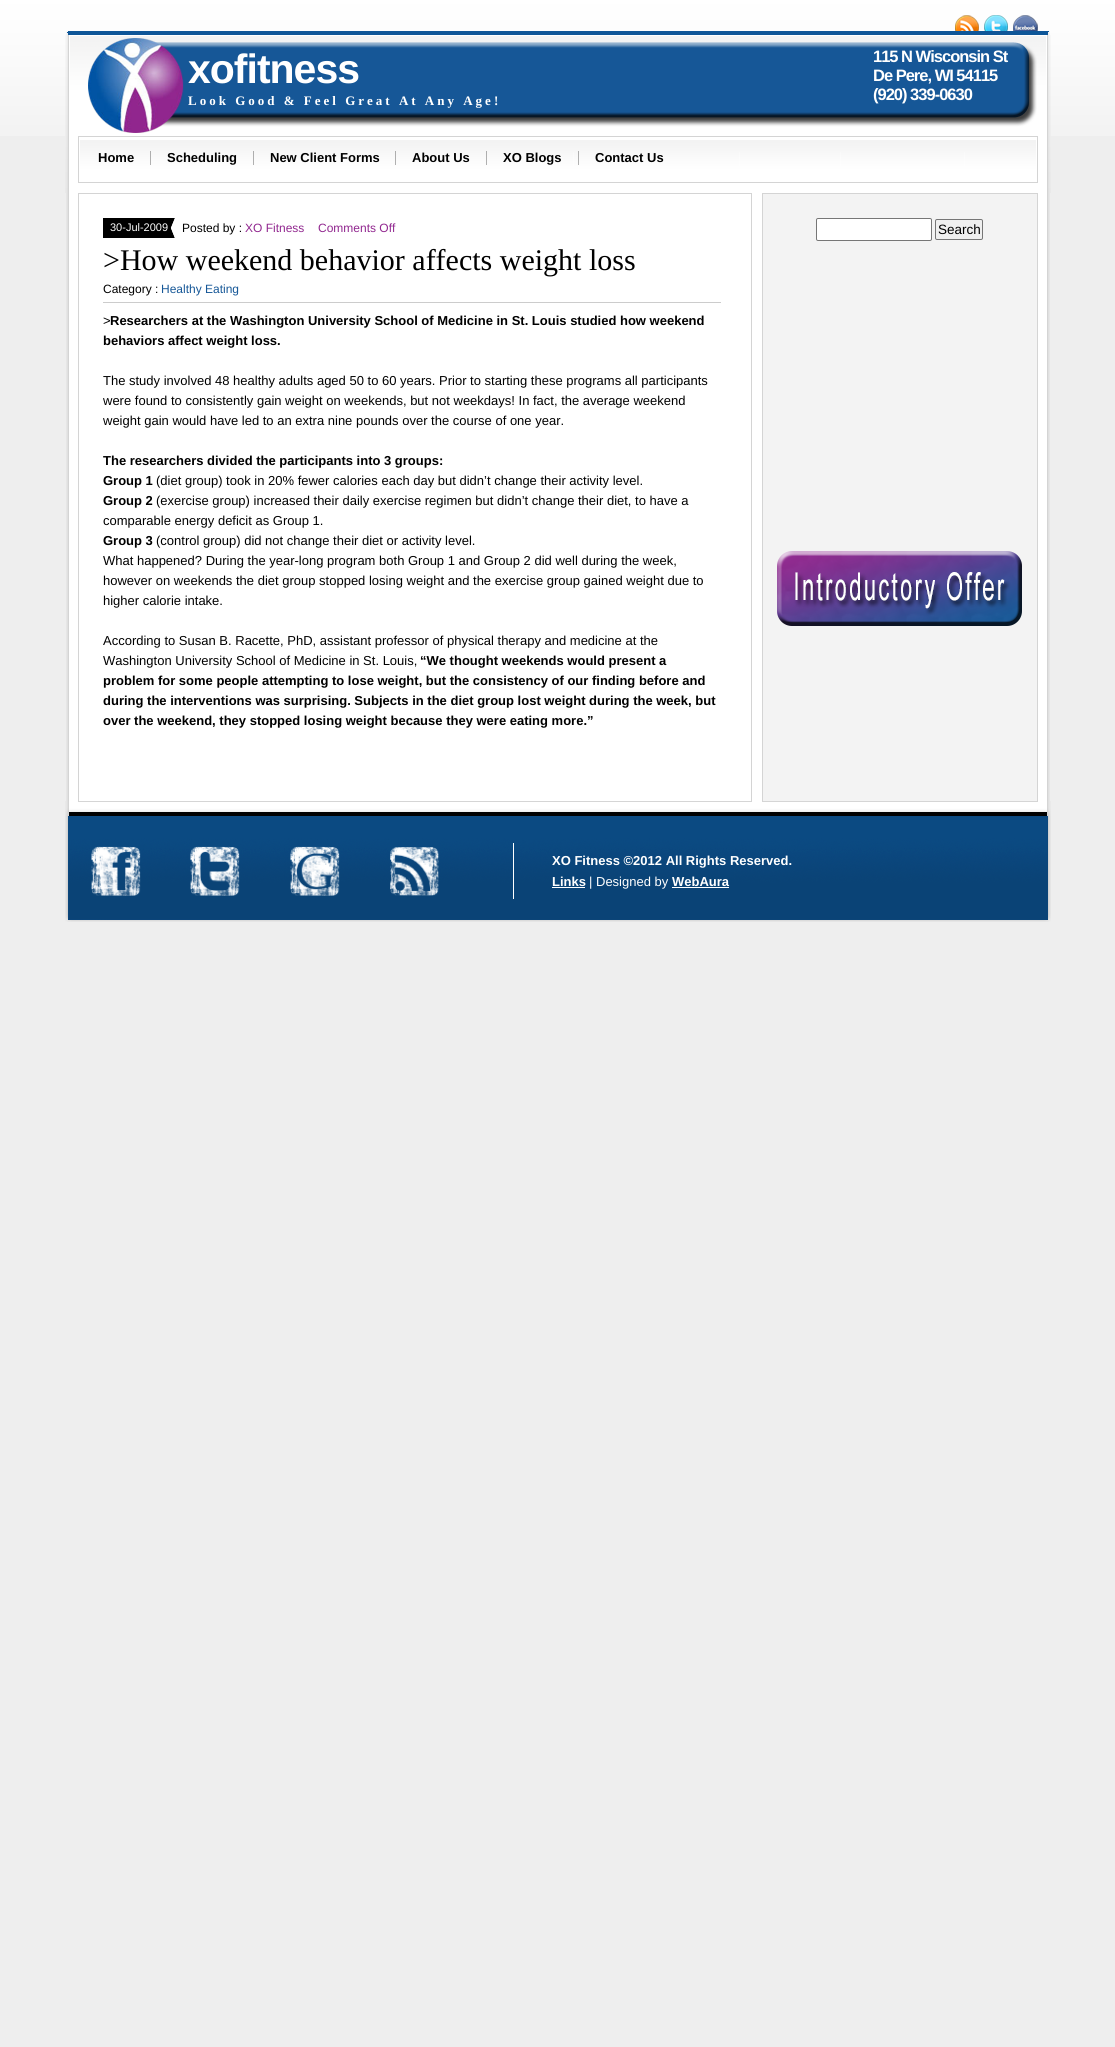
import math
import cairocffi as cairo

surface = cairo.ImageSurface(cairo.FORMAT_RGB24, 1115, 2047)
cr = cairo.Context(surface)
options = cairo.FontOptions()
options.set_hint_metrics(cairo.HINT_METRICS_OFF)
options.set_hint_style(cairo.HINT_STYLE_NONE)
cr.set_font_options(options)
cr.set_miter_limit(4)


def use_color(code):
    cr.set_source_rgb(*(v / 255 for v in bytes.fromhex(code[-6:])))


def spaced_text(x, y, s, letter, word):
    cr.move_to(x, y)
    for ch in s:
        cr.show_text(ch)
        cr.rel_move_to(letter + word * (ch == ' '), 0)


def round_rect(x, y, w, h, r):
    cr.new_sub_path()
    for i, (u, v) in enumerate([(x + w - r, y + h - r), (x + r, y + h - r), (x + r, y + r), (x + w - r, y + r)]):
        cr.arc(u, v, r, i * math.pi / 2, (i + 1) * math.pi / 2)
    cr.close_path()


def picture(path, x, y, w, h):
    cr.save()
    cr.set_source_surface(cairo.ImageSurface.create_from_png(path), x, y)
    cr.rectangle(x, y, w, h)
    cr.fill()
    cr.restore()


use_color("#eeeeee")
cr.paint()
picture("img1.png", 0, 0, 1115, 136)
picture("img2.png", 66, 31, 984, 4)
picture("img3.png", 955, 15, 24, 16)
picture("img4.png", 984, 15, 24, 16)
picture("img5.png", 1013, 15, 25, 16)
picture("img6.png", 65, 35, 986, 101)
picture("img7.png", 88, 38, 949, 95)
cr.select_font_face("Liberation Sans", cairo.FONT_SLANT_NORMAL, cairo.FONT_WEIGHT_BOLD)
cr.set_font_size(41)
use_color("#ffffff")
spaced_text(188, 83, "xofitness", -1, 0)
cr.select_font_face("Liberation Serif", cairo.FONT_SLANT_NORMAL, cairo.FONT_WEIGHT_BOLD)
cr.set_font_size(13)
spaced_text(188, 105, "Look Good & Feel Great At Any Age!", 3, 0)
cr.select_font_face("Liberation Sans", cairo.FONT_SLANT_NORMAL, cairo.FONT_WEIGHT_BOLD)
cr.set_font_size(16.5)
spaced_text(873, 62, "115 N Wisconsin St", -1, 0)
spaced_text(873, 81, "De Pere, WI 54115", -1, 0)
spaced_text(873, 100, "(920) 339-0630", -1, 0)
picture("img8.png", 65, 136, 986, 57)
picture("img9.png", 150, 151, 1, 14)
cr.set_font_size(13)
use_color("#000000")
cr.move_to(98, 162)
cr.show_text("Home")
picture("img9.png", 253, 151, 1, 14)
cr.move_to(167, 162)
cr.show_text("Scheduling")
picture("img9.png", 395, 151, 1, 14)
cr.move_to(270, 162)
cr.show_text("New Client Forms")
picture("img9.png", 486, 151, 1, 14)
cr.move_to(412, 162)
cr.show_text("About Us")
picture("img9.png", 578, 151, 1, 14)
cr.move_to(503, 162)
cr.show_text("XO Blogs")
cr.move_to(595, 162)
cr.show_text("Contact Us")
picture("img10.png", 66, 193, 984, 608)
use_color("#d4d4d4")
cr.rectangle(79, 193, 672, 1)
cr.fill()
use_color("#000000")
cr.rectangle(103, 218, 67, 20)
cr.fill()
picture("img11.png", 170, 218, 5, 20)
cr.select_font_face("Liberation Sans")
cr.set_font_size(11)
use_color("#ffffff")
cr.move_to(110, 231)
cr.show_text("30-Jul-2009")
cr.set_font_size(12)
use_color("#000000")
cr.move_to(182, 232)
cr.show_text("Posted by :")
use_color("#91278f")
cr.move_to(245, 232)
cr.show_text("XO Fitness")
cr.move_to(318, 232)
cr.show_text("Comments Off")
use_color("#cccccc")
cr.rectangle(103, 302, 618, 1)
cr.fill()
cr.select_font_face("Liberation Serif")
cr.set_font_size(30)
use_color("#000000")
cr.move_to(103, 270)
cr.show_text(">How weekend behavior affects weight loss")
cr.select_font_face("Liberation Sans")
cr.set_font_size(12)
cr.move_to(103, 293)
cr.show_text("Category :")
use_color("#165797")
cr.move_to(161, 293)
cr.show_text("Healthy Eating")
cr.set_font_size(13)
use_color("#000000")
cr.move_to(103, 325)
cr.show_text(">")
cr.select_font_face("Liberation Sans", cairo.FONT_SLANT_NORMAL, cairo.FONT_WEIGHT_BOLD)
cr.move_to(110, 325)
cr.show_text("Researchers at the Washington University School of Medicine in St. Louis studied how weekend")
cr.move_to(103, 345)
cr.show_text("behaviors affect weight loss.")
cr.select_font_face("Liberation Sans")
cr.move_to(103, 385)
cr.show_text("The study involved 48 healthy adults aged 50 to 60 years. Prior to starting these programs all participants")
cr.move_to(103, 405)
cr.show_text("were found to consistently gain weight on weekends, but not weekdays! In fact, the average weekend")
cr.move_to(103, 425)
cr.show_text("weight gain would have led to an extra nine pounds over the course of one year.")
cr.select_font_face("Liberation Sans", cairo.FONT_SLANT_NORMAL, cairo.FONT_WEIGHT_BOLD)
cr.move_to(103, 465)
cr.show_text("The researchers divided the participants into 3 groups:")
cr.move_to(103, 485)
cr.show_text("Group 1")
cr.select_font_face("Liberation Sans")
cr.move_to(156, 485)
cr.show_text("(diet group) took in 20% fewer calories each day but didn’t change their activity level.")
cr.select_font_face("Liberation Sans", cairo.FONT_SLANT_NORMAL, cairo.FONT_WEIGHT_BOLD)
cr.move_to(103, 505)
cr.show_text("Group 2")
cr.select_font_face("Liberation Sans")
cr.move_to(156, 505)
cr.show_text("(exercise group) increased their daily exercise regimen but didn’t change their diet, to have a")
cr.move_to(103, 525)
cr.show_text("comparable energy deficit as Group 1.")
cr.select_font_face("Liberation Sans", cairo.FONT_SLANT_NORMAL, cairo.FONT_WEIGHT_BOLD)
cr.move_to(103, 545)
cr.show_text("Group 3")
cr.select_font_face("Liberation Sans")
cr.move_to(156, 545)
cr.show_text("(control group) did not change their diet or activity level.")
cr.move_to(103, 565)
cr.show_text("What happened? During the year-long program both Group 1 and Group 2 did well during the week,")
cr.move_to(103, 585)
cr.show_text("however on weekends the diet group stopped losing weight and the exercise group gained weight due to")
cr.move_to(103, 605)
cr.show_text("higher calorie intake.")
cr.move_to(103, 645)
cr.show_text("According to Susan B. Racette, PhD, assistant professor of physical therapy and medicine at the")
cr.move_to(103, 665)
cr.show_text("Washington University School of Medicine in St. Louis,")
cr.select_font_face("Liberation Sans", cairo.FONT_SLANT_NORMAL, cairo.FONT_WEIGHT_BOLD)
cr.move_to(420, 665)
cr.show_text("“We thought weekends would present a")
cr.move_to(103, 685)
cr.show_text("problem for some people attempting to lose weight, but the consistency of our finding before and")
cr.move_to(103, 705)
cr.show_text("during the interventions was surprising. Subjects in the diet group lost weight during the week, but")
cr.move_to(103, 725)
cr.show_text("over the weekend, they stopped losing weight because they were eating more.”")
use_color("#d4d4d4")
cr.rectangle(763, 193, 274, 1)
cr.fill()
use_color("#ffffff")
round_rect(816.5, 218.5, 115, 22, 1.5)
cr.fill_preserve()
use_color("#767676")
cr.set_line_width(1)
cr.stroke()
use_color("#efefef")
round_rect(935.5, 219.5, 47, 20, 1.5)
cr.fill_preserve()
use_color("#767676")
cr.stroke()
cr.select_font_face("Liberation Sans")
cr.set_font_size(13.5)
use_color("#000000")
cr.move_to(938, 234)
cr.show_text("Search")
picture("img12.png", 777, 551, 245, 75)
picture("img13.png", 65, 801, 986, 121)
use_color("#ffffff")
cr.rectangle(513, 843, 1, 56)
cr.fill()
picture("img14.png", 91, 846, 50, 50)
picture("img15.png", 190, 846, 50, 50)
picture("img16.png", 290, 846, 50, 50)
picture("img17.png", 390, 847, 49, 49)
cr.select_font_face("Liberation Sans", cairo.FONT_SLANT_NORMAL, cairo.FONT_WEIGHT_BOLD)
cr.set_font_size(13)
cr.move_to(552, 865)
cr.show_text("XO Fitness ©2012 All Rights Reserved.")
cr.move_to(552, 886)
cr.show_text("Links")
cr.rectangle(552, 887, 33, 1)
cr.fill()
cr.select_font_face("Liberation Sans")
cr.move_to(589, 886)
cr.show_text("| Designed by")
cr.select_font_face("Liberation Sans", cairo.FONT_SLANT_NORMAL, cairo.FONT_WEIGHT_BOLD)
cr.move_to(672, 886)
cr.show_text("WebAura")
cr.rectangle(672, 887, 57, 1)
cr.fill()
surface.write_to_png("result.png")
